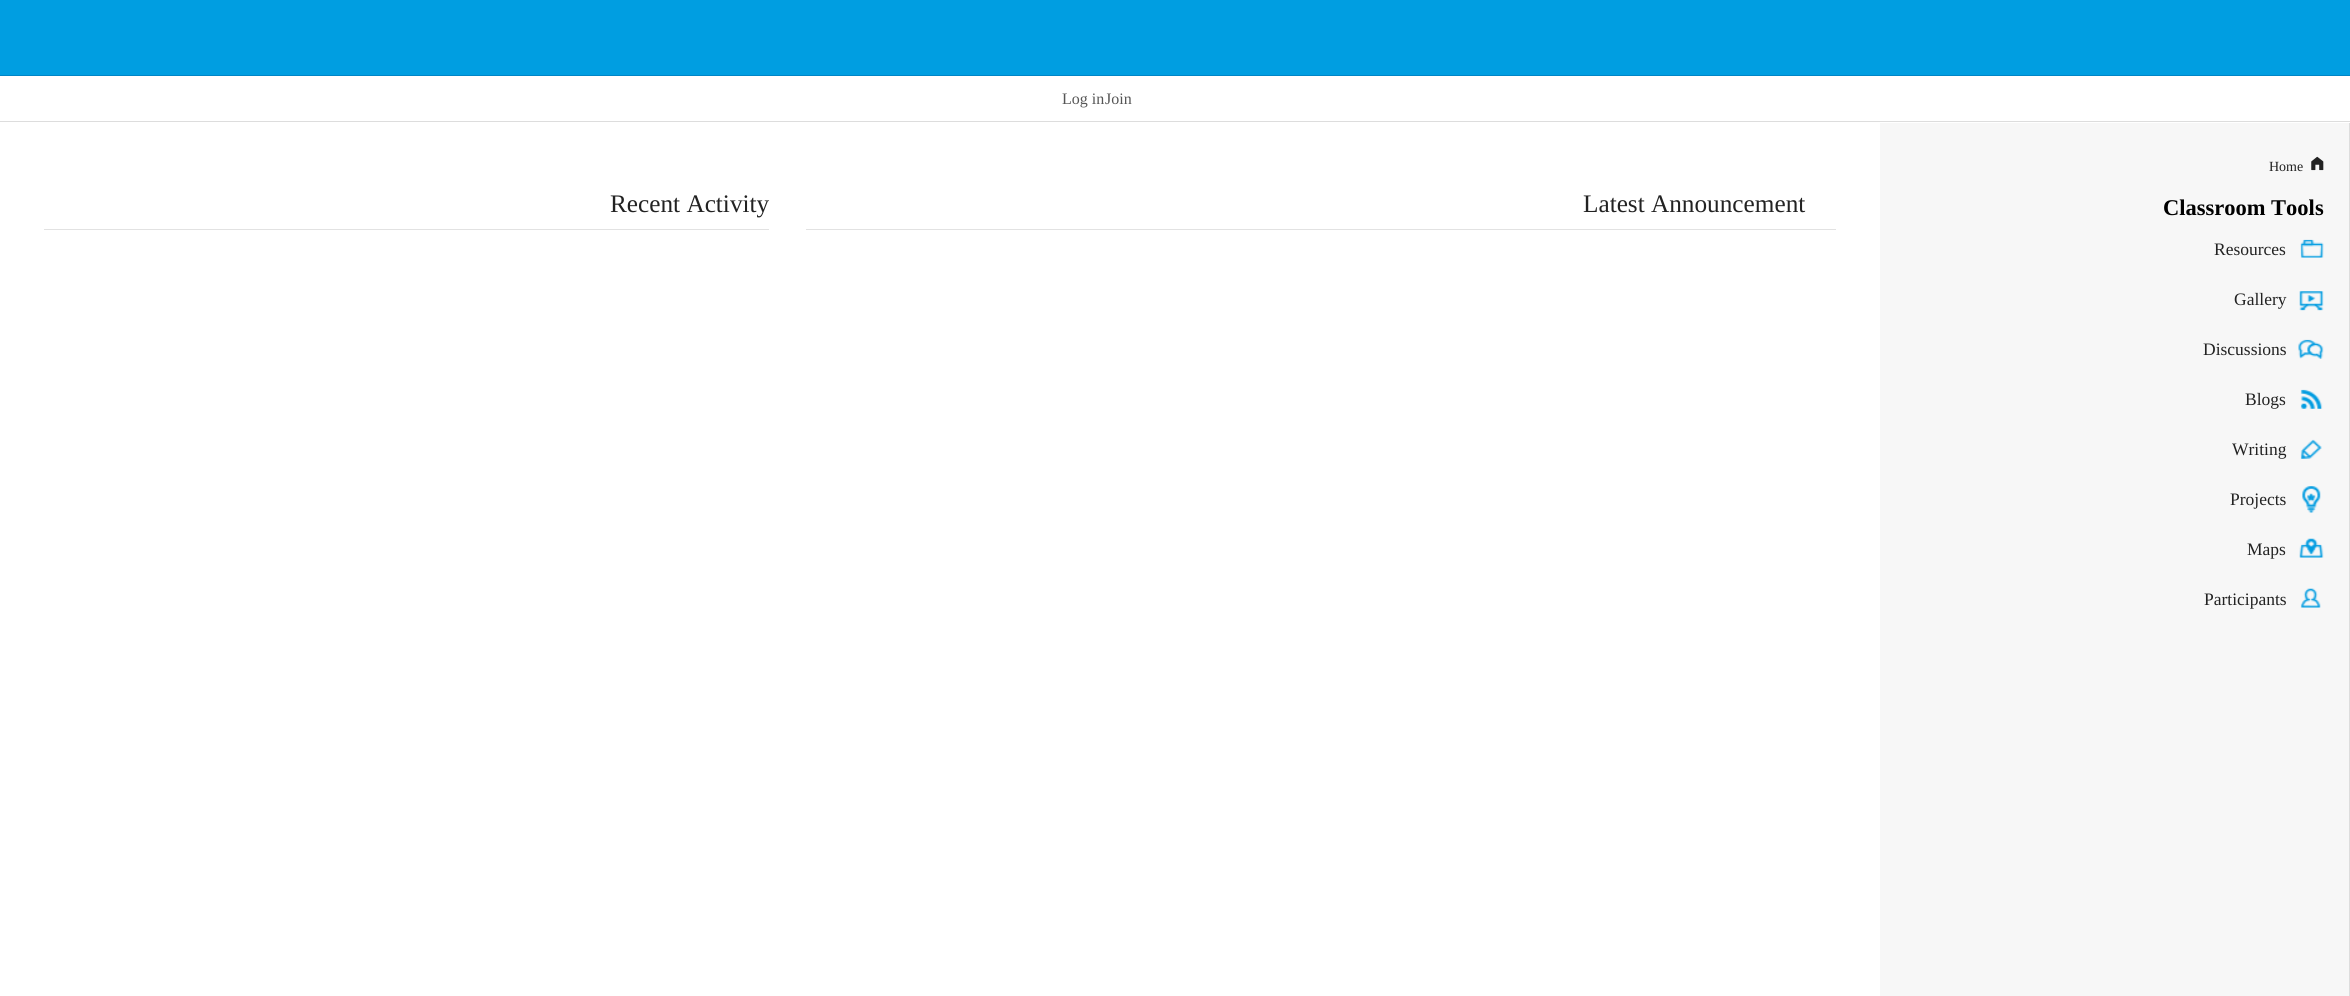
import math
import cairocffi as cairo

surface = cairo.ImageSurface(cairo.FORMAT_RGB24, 2350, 996)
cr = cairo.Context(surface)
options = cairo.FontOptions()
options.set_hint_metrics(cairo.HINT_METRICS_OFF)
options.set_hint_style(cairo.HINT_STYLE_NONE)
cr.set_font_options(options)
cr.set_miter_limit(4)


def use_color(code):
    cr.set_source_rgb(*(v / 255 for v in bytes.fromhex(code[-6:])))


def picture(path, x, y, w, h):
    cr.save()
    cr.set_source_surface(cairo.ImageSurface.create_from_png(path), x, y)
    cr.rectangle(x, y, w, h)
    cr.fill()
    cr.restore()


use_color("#ffffff")
cr.paint()
use_color("#0085c6")
cr.rectangle(0, 75, 2350, 1)
cr.fill()
use_color("#009ee1")
cr.rectangle(0, 0, 2350, 75)
cr.fill()
use_color("#dddddd")
cr.rectangle(0, 121, 2350, 1)
cr.fill()
cr.select_font_face("Liberation Serif")
cr.set_font_size(16)
use_color("#555555")
cr.move_to(1105, 104)
cr.show_text("Join")
cr.move_to(1062, 104)
cr.show_text("Log in")
use_color("#e2e2e2")
cr.rectangle(44, 229, 725, 1)
cr.fill()
cr.set_font_size(25.25)
use_color("#222222")
cr.move_to(610, 212)
cr.show_text("Recent Activity")
use_color("#e2e2e2")
cr.rectangle(806, 229, 1030, 1)
cr.fill()
use_color("#222222")
cr.move_to(1583, 212)
cr.show_text("Latest Announcement")
use_color("#f7f7f7")
cr.rectangle(1880, 123, 469, 873)
cr.fill()
use_color("#dddddd")
cr.rectangle(2349, 123, 1, 873)
cr.fill()
cr.set_font_size(14)
use_color("#222222")
cr.move_to(2269, 171)
cr.show_text("Home")
picture("img1.png", 2311, 156, 13, 15)
cr.select_font_face("Liberation Serif", cairo.FONT_SLANT_NORMAL, cairo.FONT_WEIGHT_BOLD)
cr.set_font_size(22.5)
use_color("#000000")
cr.move_to(2163, 215)
cr.show_text("Classroom Tools")
cr.select_font_face("Liberation Serif")
cr.set_font_size(17.5)
use_color("#222222")
cr.move_to(2214, 255)
cr.show_text("Resources")
picture("img2.png", 2300, 239, 24, 19)
cr.move_to(2234, 305)
cr.show_text("Gallery")
picture("img3.png", 2299, 291, 25, 20)
cr.move_to(2203, 355)
cr.show_text("Discussions")
picture("img4.png", 2298, 339, 26, 20)
cr.move_to(2245, 405)
cr.show_text("Blogs")
picture("img5.png", 2300, 389, 23, 20)
cr.move_to(2232, 455)
cr.show_text("Writing")
picture("img6.png", 2300, 439, 22, 20)
cr.move_to(2230, 505)
cr.show_text("Projects")
picture("img7.png", 2302, 486, 19, 27)
cr.move_to(2247, 555)
cr.show_text("Maps")
picture("img8.png", 2299, 538, 25, 20)
cr.move_to(2204, 605)
cr.show_text("Participants")
picture("img9.png", 2300, 588, 21, 20)
surface.write_to_png("result.png")
